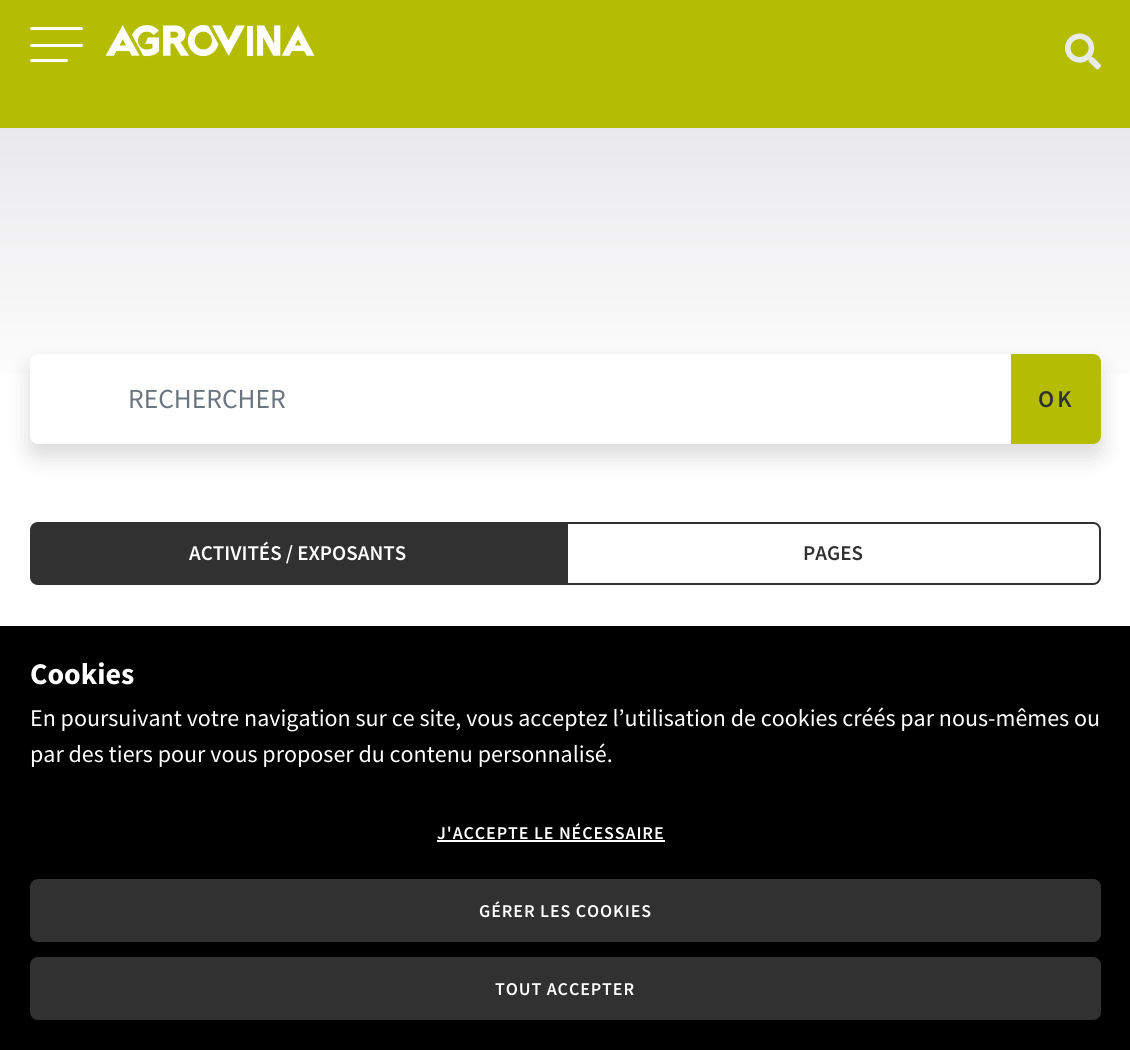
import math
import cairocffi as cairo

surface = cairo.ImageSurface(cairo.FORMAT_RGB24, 1130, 1050)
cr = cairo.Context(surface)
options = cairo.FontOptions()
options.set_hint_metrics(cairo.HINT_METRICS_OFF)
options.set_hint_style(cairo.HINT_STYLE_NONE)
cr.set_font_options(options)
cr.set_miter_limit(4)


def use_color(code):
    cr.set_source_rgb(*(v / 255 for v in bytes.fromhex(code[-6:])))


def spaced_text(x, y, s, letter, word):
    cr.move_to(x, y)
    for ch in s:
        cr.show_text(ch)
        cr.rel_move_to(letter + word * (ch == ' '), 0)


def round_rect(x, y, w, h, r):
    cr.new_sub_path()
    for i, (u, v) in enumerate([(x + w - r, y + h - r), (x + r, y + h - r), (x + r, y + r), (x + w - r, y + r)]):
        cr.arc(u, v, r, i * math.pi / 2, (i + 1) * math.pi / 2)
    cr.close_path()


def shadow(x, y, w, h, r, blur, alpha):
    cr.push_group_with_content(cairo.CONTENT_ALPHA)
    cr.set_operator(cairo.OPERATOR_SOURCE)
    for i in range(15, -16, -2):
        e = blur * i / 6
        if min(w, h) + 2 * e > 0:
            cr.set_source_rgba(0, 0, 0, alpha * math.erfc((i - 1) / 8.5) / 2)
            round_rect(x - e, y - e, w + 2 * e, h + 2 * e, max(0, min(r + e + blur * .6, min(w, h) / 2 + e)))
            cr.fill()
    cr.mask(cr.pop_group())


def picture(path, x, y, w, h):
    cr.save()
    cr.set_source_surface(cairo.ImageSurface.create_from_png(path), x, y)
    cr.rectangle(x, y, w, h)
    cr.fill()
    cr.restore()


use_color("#ffffff")
cr.paint()
use_color("#b4bd02")
cr.rectangle(0, 0, 1130, 128)
cr.fill()
use_color("#ffffff")
round_rect(30, 27, 53, 3, 1.5)
cr.fill()
round_rect(30, 44, 53, 3, 1.5)
cr.fill()
round_rect(30, 59, 38, 3, 1.5)
cr.fill()
picture("img1.png", 105, 25, 210, 32)
picture("img2.png", 1065, 33, 36, 37)
gradient = cairo.LinearGradient(566, 404, 566, -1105)
gradient.add_color_stop_rgba(0, 1, 1, 1, 1)
gradient.add_color_stop_rgba(1, 0.537, 0.514, 0.569, 1)
cr.set_source(gradient)
cr.rectangle(0, 128, 1130, 246)
cr.fill()
use_color("#000000")
shadow(30, 366, 1071, 90, 8, 12, 0.15)
use_color("#ffffff")
round_rect(30, 354, 1071, 90, 8)
cr.fill()
cr.select_font_face("Source Sans Pro")
cr.set_font_size(27.5)
use_color("#6c757d")
cr.move_to(128, 408)
cr.show_text("RECHERCHER")
use_color("#b4bd02")
cr.new_path()
cr.move_to(1012, 355)
cr.line_to(1093, 355)
cr.curve_to(1097, 355, 1100, 358, 1100, 362)
cr.line_to(1100, 436)
cr.curve_to(1100, 440, 1097, 443, 1093, 443)
cr.line_to(1012, 443)
cr.close_path()
cr.fill_preserve()
cr.stroke()
cr.select_font_face("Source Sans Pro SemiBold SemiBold")
cr.set_font_size(24)
use_color("#313131")
spaced_text(1038, 407, "OK", 3, 0)
cr.new_path()
cr.move_to(38, 523)
cr.line_to(565, 523)
cr.line_to(565, 584)
cr.line_to(38, 584)
cr.curve_to(34, 584, 31, 581, 31, 577)
cr.line_to(31, 530)
cr.curve_to(31, 526, 34, 523, 38, 523)
cr.close_path()
cr.fill_preserve()
cr.stroke()
cr.set_font_size(21)
use_color("#ffffff")
cr.move_to(189, 560)
cr.show_text("ACTIVITÉS / EXPOSANTS")
cr.new_path()
cr.move_to(567, 523)
cr.line_to(1093, 523)
cr.curve_to(1097, 523, 1100, 526, 1100, 530)
cr.line_to(1100, 577)
cr.curve_to(1100, 581, 1097, 584, 1093, 584)
cr.line_to(567, 584)
cr.close_path()
use_color("#313131")
cr.stroke()
cr.move_to(803, 560)
cr.show_text("PAGES")
use_color("#000000")
cr.rectangle(0, 626, 1130, 424)
cr.fill()
cr.select_font_face("Source Sans Pro", cairo.FONT_SLANT_NORMAL, cairo.FONT_WEIGHT_BOLD)
cr.set_font_size(30)
use_color("#ffffff")
cr.move_to(30, 684)
cr.show_text("Cookies")
cr.select_font_face("Source Sans Pro")
cr.set_font_size(24)
cr.move_to(30, 726)
cr.show_text("En poursuivant votre navigation sur ce site, vous acceptez l’utilisation de cookies créés par nous-mêmes ou")
cr.move_to(30, 762)
cr.show_text("par des tiers pour vous proposer du contenu personnalisé.")
cr.select_font_face("Source Sans Pro SemiBold SemiBold")
cr.set_font_size(18)
spaced_text(437, 839, "J'ACCEPTE LE NÉCESSAIRE", 0.9, 0)
cr.rectangle(437, 840, 228, 2)
cr.fill()
use_color("#313131")
round_rect(30, 879, 1071, 63, 8)
cr.fill()
use_color("#ffffff")
spaced_text(479, 917, "GÉRER LES COOKIES", 0.9, 0)
use_color("#313131")
round_rect(30, 957, 1071, 63, 8)
cr.fill()
use_color("#ffffff")
spaced_text(495, 995, "TOUT ACCEPTER", 0.9, 0)
surface.write_to_png("result.png")
